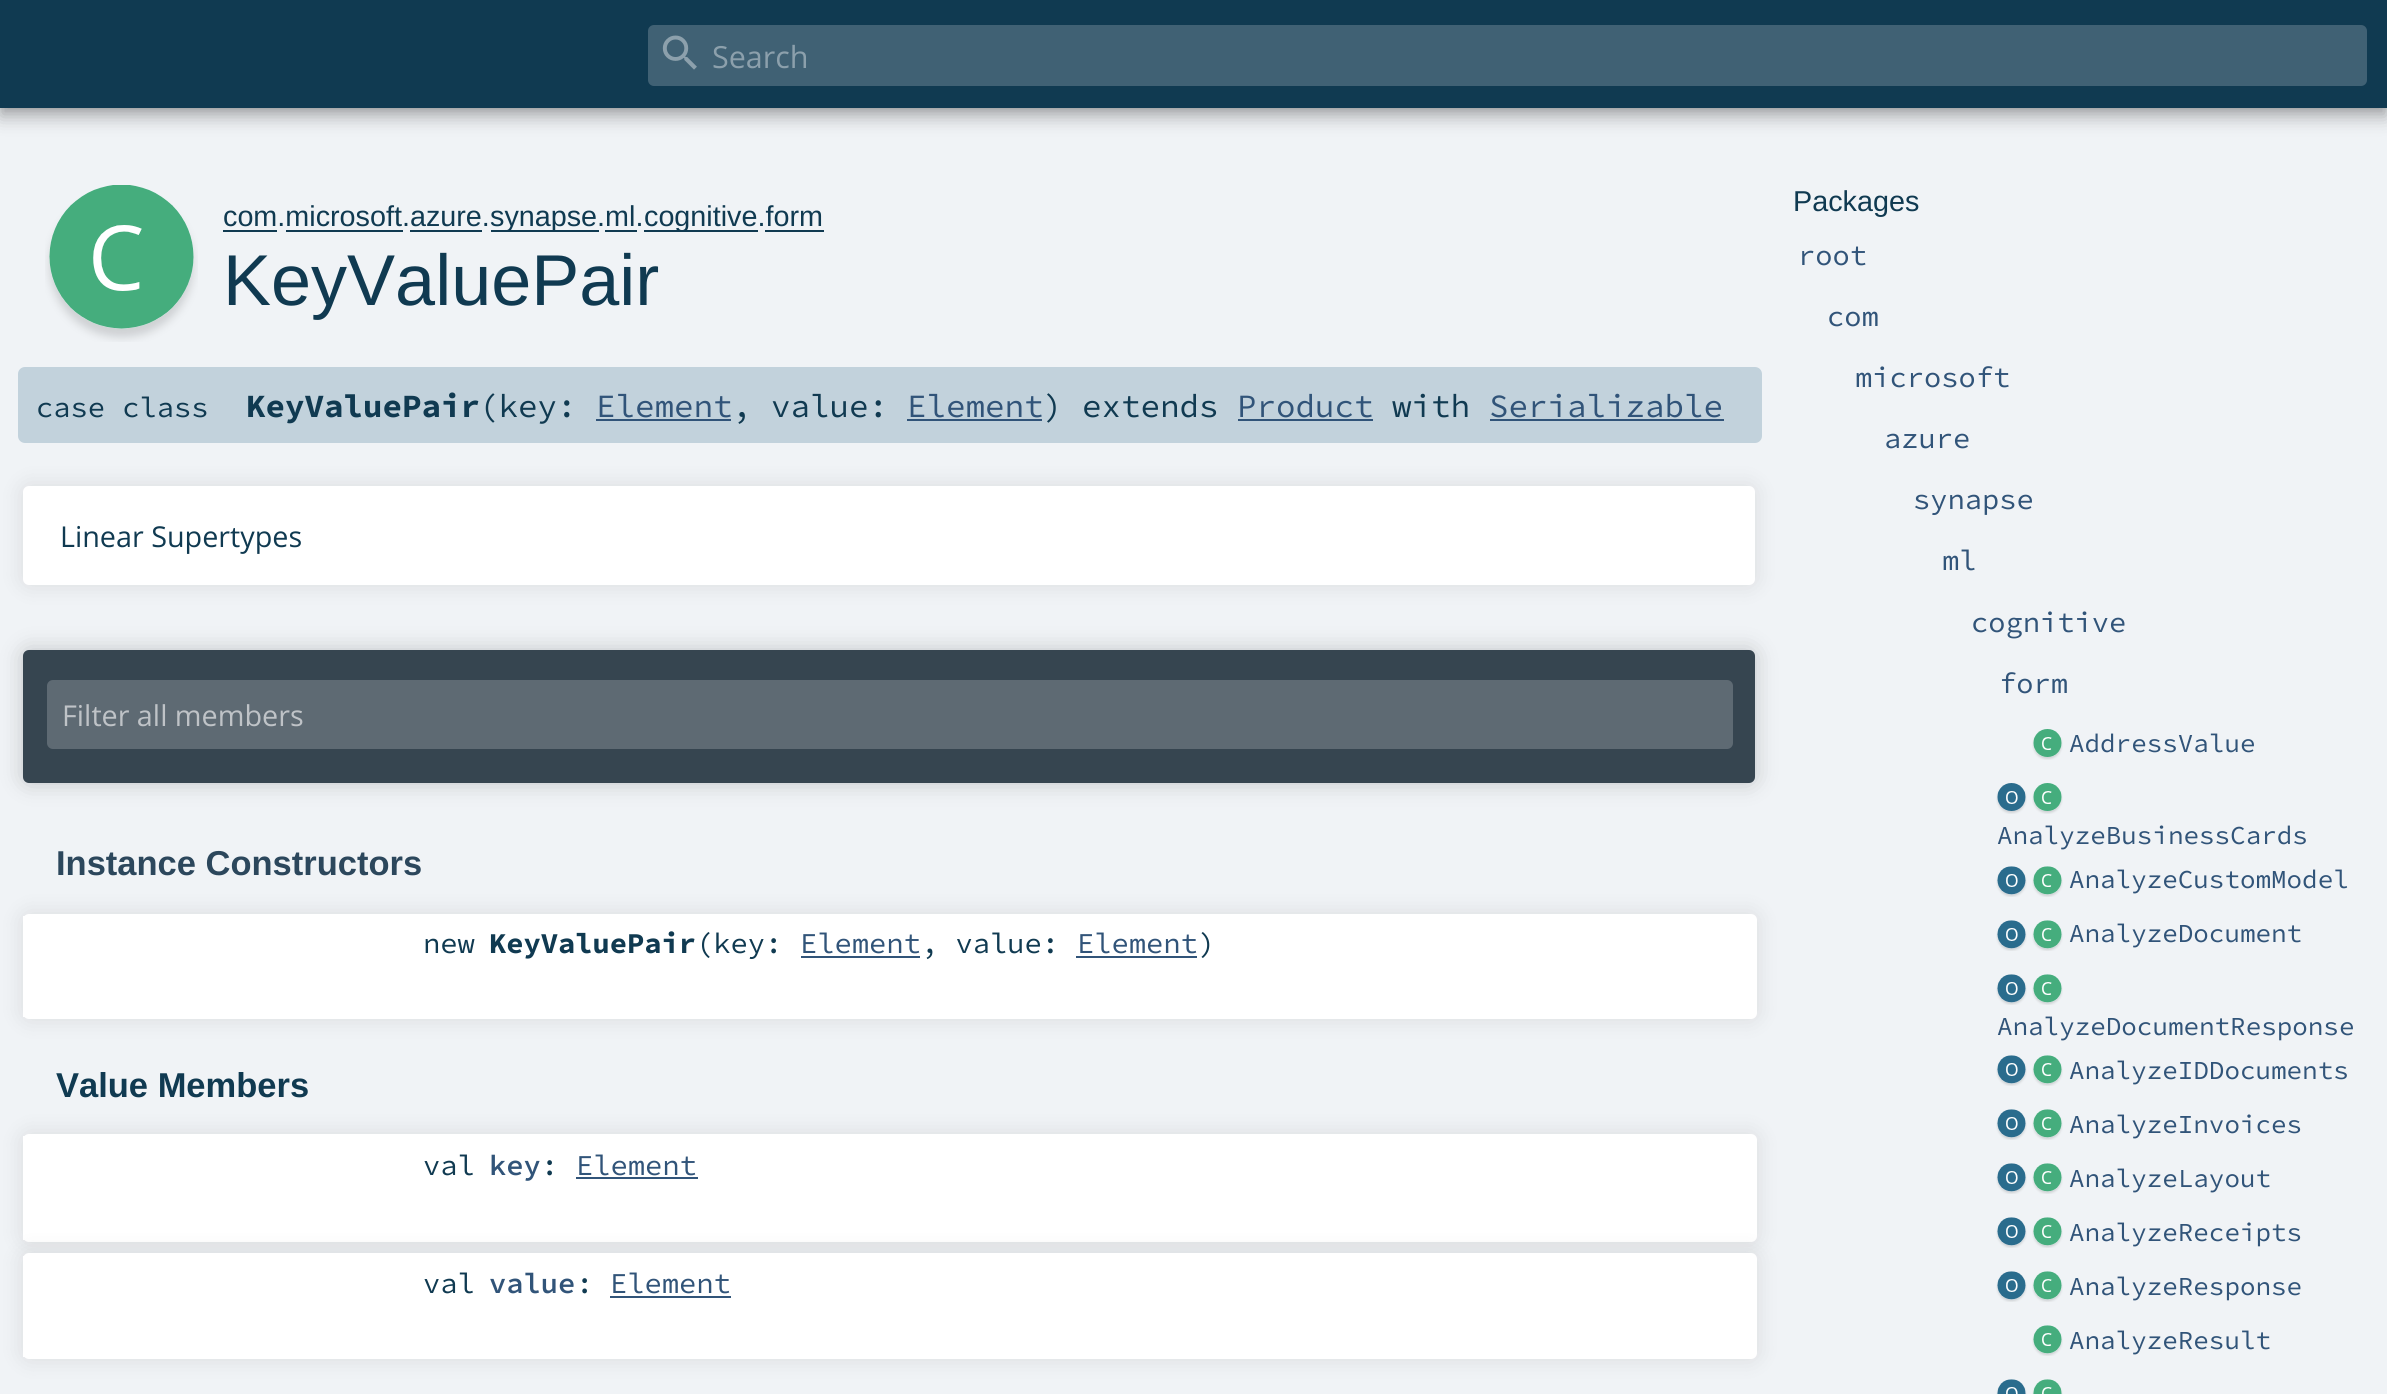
import math
import cairocffi as cairo

surface = cairo.ImageSurface(cairo.FORMAT_RGB24, 2387, 1394)
cr = cairo.Context(surface)
options = cairo.FontOptions()
options.set_hint_metrics(cairo.HINT_METRICS_OFF)
options.set_hint_style(cairo.HINT_STYLE_NONE)
cr.set_font_options(options)
cr.set_miter_limit(4)


def use_color(code):
    cr.set_source_rgb(*(v / 255 for v in bytes.fromhex(code[-6:])))


def round_rect(x, y, w, h, r):
    cr.new_sub_path()
    for i, (u, v) in enumerate([(x + w - r, y + h - r), (x + r, y + h - r), (x + r, y + r), (x + w - r, y + r)]):
        cr.arc(u, v, r, i * math.pi / 2, (i + 1) * math.pi / 2)
    cr.close_path()


def shadow(x, y, w, h, r, blur, alpha):
    cr.push_group_with_content(cairo.CONTENT_ALPHA)
    cr.set_operator(cairo.OPERATOR_SOURCE)
    for i in range(15, -16, -2):
        e = blur * i / 6
        if min(w, h) + 2 * e > 0:
            cr.set_source_rgba(0, 0, 0, alpha * math.erfc((i - 1) / 8.5) / 2)
            round_rect(x - e, y - e, w + 2 * e, h + 2 * e, max(0, min(r + e + blur * .6, min(w, h) / 2 + e)))
            cr.fill()
    cr.mask(cr.pop_group())


def picture(path, x, y, w, h):
    cr.save()
    cr.set_source_surface(cairo.ImageSurface.create_from_png(path), x, y)
    cr.rectangle(x, y, w, h)
    cr.fill()
    cr.restore()


use_color("#f0f3f6")
cr.paint()
use_color("#000000")
shadow(0, 9, 2387, 108, 0, 9, 0.28)
shadow(0, 0, 2387, 108, 0, 4.5, 0.18)
use_color("#103a51")
cr.rectangle(0, 0, 2387, 108)
cr.fill()
use_color("#406174")
round_rect(648, 25, 1719, 61, 6)
cr.fill()
picture("img1.png", 662, 35, 35, 35)
cr.select_font_face("Open Sans")
cr.set_font_size(30.5)
use_color("#8ca0ac")
cr.move_to(712, 68)
cr.show_text("Search")
picture("img2.png", 45, 185, 153, 157)
cr.select_font_face("Liberation Sans")
cr.set_font_size(28.75)
use_color("#103a51")
cr.move_to(223, 226)
cr.show_text("com.microsoft.azure.")
cr.rectangle(223, 230, 54, 2)
cr.fill()
cr.rectangle(491, 230, 108, 2)
cr.fill()
cr.move_to(490, 226)
cr.show_text("synapse.ml.")
cr.rectangle(644, 230, 114, 2)
cr.fill()
cr.move_to(644, 226)
cr.show_text("cognitive.form")
cr.rectangle(286, 230, 117, 2)
cr.fill()
cr.rectangle(410, 230, 72, 2)
cr.fill()
cr.rectangle(605, 230, 32, 2)
cr.fill()
cr.rectangle(765, 230, 59, 2)
cr.fill()
cr.set_font_size(72)
cr.move_to(223, 305)
cr.show_text("KeyValuePair")
use_color("#c2d2dc")
round_rect(18, 367, 1744, 76, 7)
cr.fill()
cr.select_font_face("Source Code Pro")
cr.set_font_size(28.75)
use_color("#103a51")
cr.move_to(36, 417)
cr.show_text("case class")
cr.select_font_face("Source Code Pro", cairo.FONT_SLANT_NORMAL, cairo.FONT_WEIGHT_BOLD)
cr.set_font_size(32.5)
cr.move_to(246, 417)
cr.show_text("KeyValuePair")
cr.select_font_face("Source Code Pro")
cr.move_to(479, 417)
cr.show_text("(key:")
use_color("#315479")
cr.move_to(596, 417)
cr.show_text("Element")
cr.rectangle(596, 419, 135, 2)
cr.fill()
use_color("#103a51")
cr.move_to(732, 417)
cr.show_text(", value:")
use_color("#315479")
cr.move_to(907, 417)
cr.show_text("Element")
use_color("#103a51")
cr.move_to(1043, 417)
cr.show_text(") extends")
use_color("#315479")
cr.rectangle(907, 419, 135, 2)
cr.fill()
cr.move_to(1237, 417)
cr.show_text("Product")
cr.rectangle(1238, 419, 135, 2)
cr.fill()
use_color("#103a51")
cr.move_to(1392, 417)
cr.show_text("with")
use_color("#315479")
cr.move_to(1489, 417)
cr.show_text("Serializable")
cr.rectangle(1490, 419, 234, 2)
cr.fill()
use_color("#000000")
shadow(23, 486, 1732, 99, 6, 11, 0.1)
use_color("#ffffff")
round_rect(23, 486, 1732, 99, 6)
cr.fill()
cr.select_font_face("Open Sans")
cr.set_font_size(28.75)
use_color("#103a51")
cr.move_to(60, 547)
cr.show_text("Linear Supertypes")
use_color("#000000")
shadow(23, 650, 1732, 133, 6, 11, 0.2)
use_color("#364550")
round_rect(23, 650, 1732, 133, 6)
cr.fill()
use_color("#5e6a73")
round_rect(47, 680, 1686, 69, 6)
cr.fill()
use_color("#bfc3c7")
cr.move_to(62, 726)
cr.show_text("Filter all members")
cr.select_font_face("Liberation Sans", cairo.FONT_SLANT_NORMAL, cairo.FONT_WEIGHT_BOLD)
cr.set_font_size(34.5)
use_color("#2c475c")
cr.move_to(56, 875)
cr.show_text("Instance Constructors")
use_color("#000000")
shadow(23, 914, 1734, 105, 6, 11, 0.1)
use_color("#ffffff")
round_rect(23, 914, 1734, 105, 6)
cr.fill()
cr.rectangle(23, 916, 2, 101)
cr.fill()
cr.select_font_face("Source Code Pro")
cr.set_font_size(28.75)
use_color("#103a51")
cr.move_to(423, 953)
cr.show_text("new")
cr.select_font_face("Source Code Pro", cairo.FONT_SLANT_NORMAL, cairo.FONT_WEIGHT_BOLD)
cr.move_to(489, 953)
cr.show_text("KeyValuePair")
cr.select_font_face("Source Code Pro")
cr.move_to(696, 953)
cr.show_text("(key:")
use_color("#315479")
cr.move_to(800, 953)
cr.show_text("Element")
cr.rectangle(801, 956, 119, 2)
cr.fill()
use_color("#103a51")
cr.move_to(921, 953)
cr.show_text(", value:")
use_color("#315479")
cr.move_to(1077, 953)
cr.show_text("Element")
cr.rectangle(1076, 956, 121, 2)
cr.fill()
use_color("#103a51")
cr.move_to(1198, 953)
cr.show_text(")")
cr.select_font_face("Liberation Sans", cairo.FONT_SLANT_NORMAL, cairo.FONT_WEIGHT_BOLD)
cr.set_font_size(34.5)
cr.move_to(56, 1097)
cr.show_text("Value Members")
use_color("#000000")
shadow(23, 1134, 1734, 108, 6, 11, 0.1)
use_color("#ffffff")
round_rect(23, 1134, 1734, 108, 6)
cr.fill()
cr.rectangle(23, 1136, 2, 104)
cr.fill()
cr.select_font_face("Source Code Pro")
cr.set_font_size(28.75)
use_color("#103a51")
cr.move_to(423, 1175)
cr.show_text("val")
cr.select_font_face("Source Code Pro SemiBold")
use_color("#315479")
cr.move_to(489, 1175)
cr.show_text("key")
cr.select_font_face("Source Code Pro")
use_color("#103a51")
cr.move_to(541, 1175)
cr.show_text(":")
use_color("#315479")
cr.move_to(576, 1175)
cr.show_text("Element")
cr.rectangle(576, 1177, 122, 2)
cr.fill()
use_color("#000000")
shadow(23, 1253, 1734, 106, 6, 11, 0.1)
use_color("#ffffff")
round_rect(23, 1253, 1734, 106, 6)
cr.fill()
cr.rectangle(23, 1256, 2, 101)
cr.fill()
use_color("#103a51")
cr.move_to(423, 1293)
cr.show_text("val")
cr.select_font_face("Source Code Pro SemiBold")
use_color("#315479")
cr.move_to(489, 1293)
cr.show_text("value")
cr.select_font_face("Source Code Pro")
use_color("#103a51")
cr.move_to(576, 1293)
cr.show_text(":")
use_color("#315479")
cr.move_to(610, 1293)
cr.show_text("Element")
cr.rectangle(610, 1296, 121, 2)
cr.fill()
cr.select_font_face("Liberation Sans")
use_color("#103a51")
cr.move_to(1793, 211)
cr.show_text("Packages")
cr.select_font_face("Source Code Pro")
use_color("#315479")
cr.move_to(1798, 265)
cr.show_text("root")
cr.move_to(1827, 326)
cr.show_text("com")
cr.move_to(1855, 387)
cr.show_text("microsoft")
cr.move_to(1884, 448)
cr.show_text("azure")
cr.move_to(1913, 509)
cr.show_text("synapse")
cr.move_to(1942, 570)
cr.show_text("ml")
cr.move_to(1971, 632)
cr.show_text("cognitive")
cr.move_to(1999, 693)
cr.show_text("form")
picture("img3.png", 2032, 729, 31, 31)
cr.set_font_size(25.9)
cr.move_to(2069, 752)
cr.show_text("AddressValue")
picture("img4.png", 1996, 783, 31, 31)
picture("img3.png", 2032, 783, 31, 31)
cr.move_to(1997, 844)
cr.show_text("AnalyzeBusinessCards")
picture("img5.png", 1996, 866, 31, 31)
picture("img6.png", 2032, 866, 31, 31)
cr.move_to(2069, 888)
cr.show_text("AnalyzeCustomModel")
picture("img5.png", 1996, 920, 31, 31)
picture("img6.png", 2032, 920, 31, 31)
cr.move_to(2069, 942)
cr.show_text("AnalyzeDocument")
picture("img5.png", 1996, 974, 31, 31)
picture("img6.png", 2032, 974, 31, 31)
cr.move_to(1997, 1035)
cr.show_text("AnalyzeDocumentResponse")
picture("img5.png", 1996, 1055, 31, 31)
picture("img6.png", 2032, 1055, 31, 31)
cr.move_to(2069, 1079)
cr.show_text("AnalyzeIDDocuments")
picture("img5.png", 1996, 1109, 31, 31)
picture("img6.png", 2032, 1109, 31, 31)
cr.move_to(2069, 1133)
cr.show_text("AnalyzeInvoices")
picture("img5.png", 1996, 1163, 31, 31)
picture("img6.png", 2032, 1163, 31, 31)
cr.move_to(2069, 1187)
cr.show_text("AnalyzeLayout")
picture("img5.png", 1996, 1217, 31, 31)
picture("img6.png", 2032, 1217, 31, 31)
cr.move_to(2069, 1241)
cr.show_text("AnalyzeReceipts")
picture("img5.png", 1996, 1271, 31, 31)
picture("img6.png", 2032, 1271, 31, 31)
cr.move_to(2069, 1295)
cr.show_text("AnalyzeResponse")
picture("img6.png", 2032, 1325, 31, 31)
cr.move_to(2069, 1349)
cr.show_text("AnalyzeResult")
picture("img7.png", 1996, 1379, 31, 15)
picture("img8.png", 2032, 1379, 31, 15)
surface.write_to_png("result.png")
